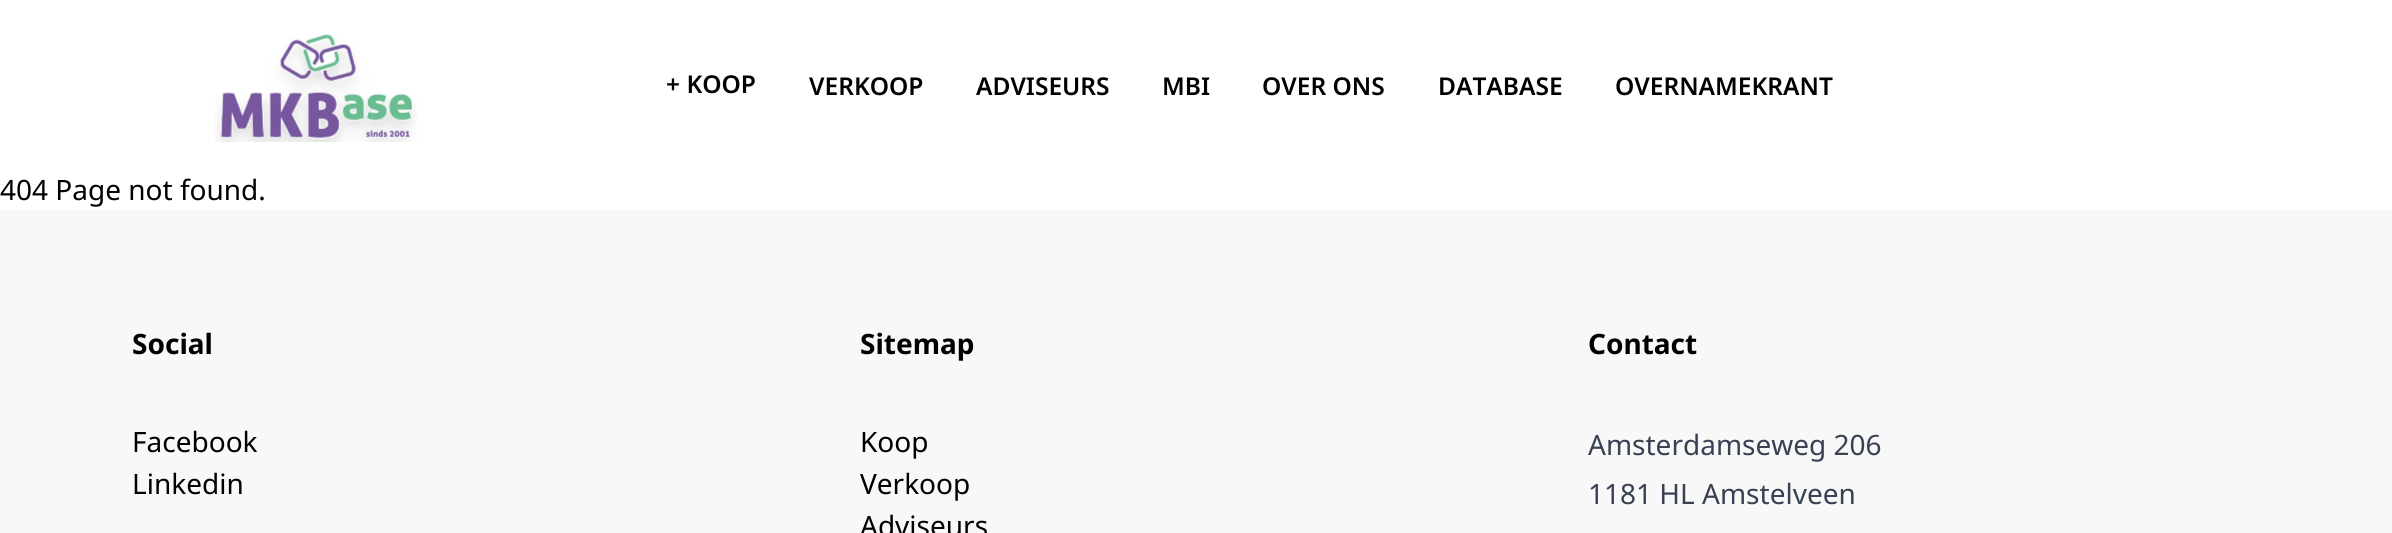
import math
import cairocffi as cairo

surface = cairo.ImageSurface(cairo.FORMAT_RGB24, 2392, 533)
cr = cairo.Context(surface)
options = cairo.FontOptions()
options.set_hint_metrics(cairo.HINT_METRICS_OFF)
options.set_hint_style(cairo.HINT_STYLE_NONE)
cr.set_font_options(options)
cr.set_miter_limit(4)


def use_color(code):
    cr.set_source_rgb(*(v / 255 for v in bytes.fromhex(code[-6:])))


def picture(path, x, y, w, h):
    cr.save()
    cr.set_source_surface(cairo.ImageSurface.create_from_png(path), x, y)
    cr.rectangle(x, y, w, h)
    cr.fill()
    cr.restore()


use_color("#ffffff")
cr.paint()
picture("img1.png", 215, 34, 202, 108)
cr.select_font_face("Noto Sans SemiBold")
cr.set_font_size(24.5)
use_color("#000000")
cr.move_to(666, 93)
cr.show_text("+ KOOP")
cr.move_to(809, 95)
cr.show_text("VERKOOP")
cr.move_to(976, 95)
cr.show_text("ADVISEURS")
cr.move_to(1162, 95)
cr.show_text("MBI")
cr.move_to(1262, 95)
cr.show_text("OVER ONS")
cr.move_to(1438, 95)
cr.show_text("DATABASE")
cr.move_to(1615, 95)
cr.show_text("OVERNAMEKRANT")
cr.select_font_face("Noto Sans")
cr.set_font_size(28)
cr.move_to(0, 200)
cr.show_text("404 Page not found.")
use_color("#f8f8f8")
cr.rectangle(0, 210, 2392, 323)
cr.fill()
cr.select_font_face("Noto Sans", cairo.FONT_SLANT_NORMAL, cairo.FONT_WEIGHT_BOLD)
use_color("#000000")
cr.move_to(132, 354)
cr.show_text("Social")
cr.select_font_face("Noto Sans")
cr.move_to(132, 452)
cr.show_text("Facebook")
cr.move_to(132, 494)
cr.show_text("Linkedin")
cr.select_font_face("Noto Sans", cairo.FONT_SLANT_NORMAL, cairo.FONT_WEIGHT_BOLD)
cr.move_to(860, 354)
cr.show_text("Sitemap")
cr.select_font_face("Noto Sans")
cr.move_to(860, 452)
cr.show_text("Koop")
cr.move_to(860, 494)
cr.show_text("Verkoop")
cr.move_to(860, 536)
cr.show_text("Adviseurs")
cr.select_font_face("Noto Sans", cairo.FONT_SLANT_NORMAL, cairo.FONT_WEIGHT_BOLD)
cr.move_to(1588, 354)
cr.show_text("Contact")
cr.select_font_face("Noto Sans")
use_color("#374151")
cr.move_to(1588, 455)
cr.show_text("Amsterdamseweg 206")
cr.move_to(1588, 504)
cr.show_text("1181 HL Amstelveen")
surface.write_to_png("result.png")
